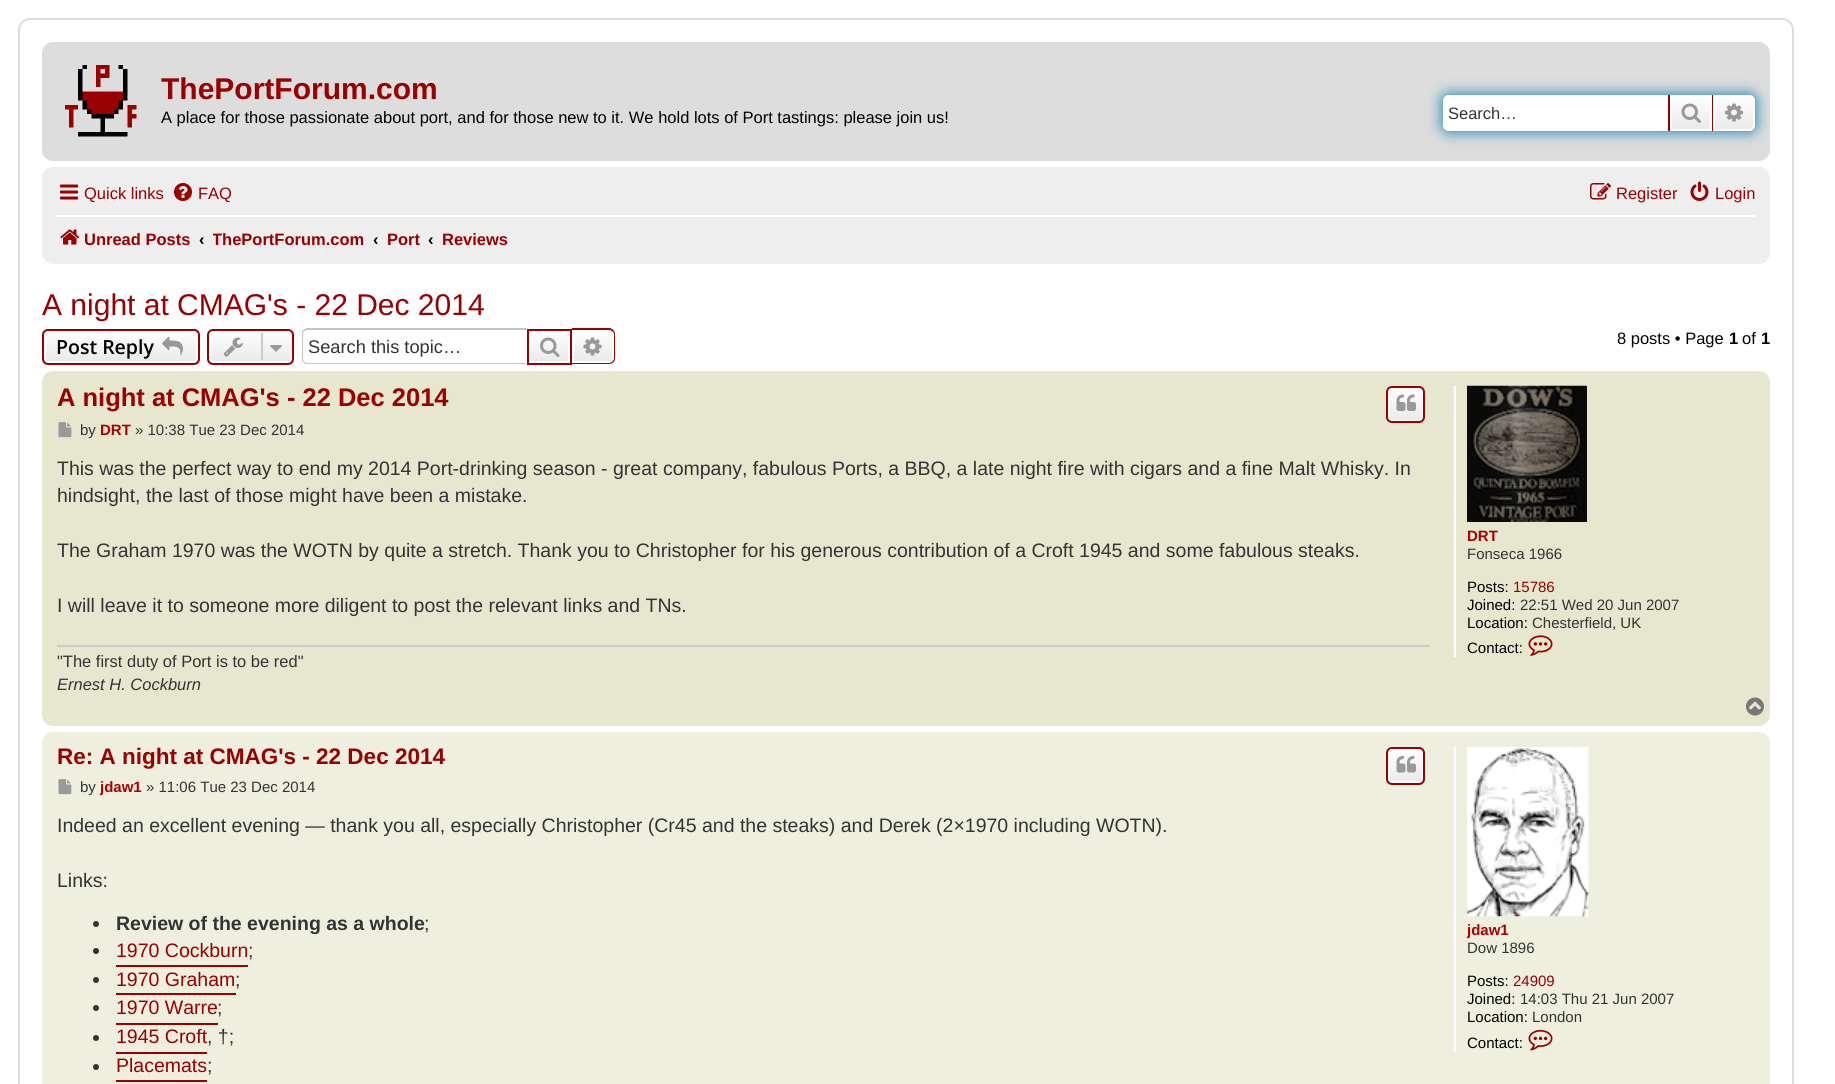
import math
import cairocffi as cairo

surface = cairo.ImageSurface(cairo.FORMAT_RGB24, 1835, 1084)
cr = cairo.Context(surface)
options = cairo.FontOptions()
options.set_hint_metrics(cairo.HINT_METRICS_OFF)
options.set_hint_style(cairo.HINT_STYLE_NONE)
cr.set_font_options(options)
cr.set_miter_limit(4)


def use_color(code):
    cr.set_source_rgb(*(v / 255 for v in bytes.fromhex(code[-6:])))


def round_rect(x, y, w, h, r):
    cr.new_sub_path()
    for i, (u, v) in enumerate([(x + w - r, y + h - r), (x + r, y + h - r), (x + r, y + r), (x + w - r, y + r)]):
        cr.arc(u, v, r, i * math.pi / 2, (i + 1) * math.pi / 2)
    cr.close_path()


def shadow(x, y, w, h, r, blur, alpha):
    cr.push_group_with_content(cairo.CONTENT_ALPHA)
    cr.set_operator(cairo.OPERATOR_SOURCE)
    for i in range(15, -16, -2):
        e = blur * i / 6
        if min(w, h) + 2 * e > 0:
            cr.set_source_rgba(0, 0, 0, alpha * math.erfc((i - 1) / 8.5) / 2)
            round_rect(x - e, y - e, w + 2 * e, h + 2 * e, max(0, min(r + e + blur * .6, min(w, h) / 2 + e)))
            cr.fill()
    cr.mask(cr.pop_group())


def picture(path, x, y, w, h):
    cr.save()
    cr.set_source_surface(cairo.ImageSurface.create_from_png(path), x, y)
    cr.rectangle(x, y, w, h)
    cr.fill()
    cr.restore()


use_color("#ffffff")
cr.paint()
round_rect(19, 19, 1774, 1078, 11)
use_color("#dddddd")
cr.stroke()
round_rect(42, 42, 1728, 119, 11)
cr.fill()
picture("img1.png", 65, 65, 72, 72)
cr.select_font_face("Liberation Sans", cairo.FONT_SLANT_NORMAL, cairo.FONT_WEIGHT_BOLD)
cr.set_font_size(30)
use_color("#990000")
cr.move_to(161, 99)
cr.show_text("ThePortForum.com")
cr.select_font_face("Liberation Sans")
cr.set_font_size(16.5)
use_color("#000000")
cr.move_to(161, 123)
cr.show_text("A place for those passionate about port, and for those new to it. We hold lots of Port tastings: please join us!")
use_color("#0075b0")
shadow(1443, 95, 312, 36, 6, 7.5, 1)
use_color("#ffffff")
cr.new_path()
cr.move_to(1449, 95)
cr.line_to(1668, 95)
cr.line_to(1668, 131)
cr.line_to(1449, 131)
cr.curve_to(1445.5, 131, 1443, 128.5, 1443, 125)
cr.line_to(1443, 101)
cr.curve_to(1443, 97.5, 1445.5, 95, 1449, 95)
cr.close_path()
cr.fill()
use_color("#333333")
cr.move_to(1448, 119)
cr.show_text("Search…")
gradient = cairo.LinearGradient(1691, 95, 1691, 131)
gradient.add_color_stop_rgba(0, 1, 1, 1, 1)
gradient.add_color_stop_rgba(1, 0.914, 0.914, 0.914, 1)
cr.set_source(gradient)
cr.rectangle(1672, 97, 38, 32)
cr.fill()
cr.rectangle(1671, 96, 40, 34)
use_color("#ffffff")
cr.stroke()
use_color("#990000")
cr.rectangle(1712, 95, 1, 36)
cr.fill()
cr.rectangle(1668, 95, 2, 36)
cr.fill()
picture("img2.png", 1681, 103, 20, 20)
gradient = cairo.LinearGradient(1734, 95, 1734, 131)
gradient.add_color_stop_rgba(0, 1, 1, 1, 1)
gradient.add_color_stop_rgba(1, 0.914, 0.914, 0.914, 1)
cr.set_source(gradient)
cr.new_path()
cr.move_to(1714, 96)
cr.line_to(1749, 96)
cr.curve_to(1752, 96, 1754, 98, 1754, 101)
cr.line_to(1754, 125)
cr.curve_to(1754, 128, 1752, 130, 1749, 130)
cr.line_to(1714, 130)
cr.close_path()
cr.fill_preserve()
use_color("#ffffff")
cr.stroke()
picture("img3.png", 1725, 103, 18, 19)
use_color("#eeeeee")
round_rect(42, 167, 1728, 97, 11)
cr.fill()
picture("img4.png", 60, 184, 18, 16)
use_color("#990000")
cr.move_to(84, 199)
cr.show_text("Quick links")
picture("img5.png", 174, 183, 18, 18)
cr.move_to(198, 199)
cr.show_text("FAQ")
picture("img6.png", 1590, 183, 21, 17)
cr.move_to(1616, 199)
cr.show_text("Register")
picture("img7.png", 1690, 181, 19, 20)
cr.move_to(1715, 199)
cr.show_text("Login")
use_color("#ffffff")
cr.rectangle(57, 215, 1698, 2)
cr.fill()
picture("img8.png", 60, 229, 20, 16)
cr.select_font_face("Liberation Sans", cairo.FONT_SLANT_NORMAL, cairo.FONT_WEIGHT_BOLD)
use_color("#990000")
cr.move_to(84, 245)
cr.show_text("Unread Posts")
use_color("#000000")
cr.move_to(199, 245)
cr.show_text("‹")
cr.save()
cr.rectangle(213, 221, 152, 36)
cr.clip()
use_color("#990000")
cr.move_to(212, 245)
cr.show_text("ThePortForum.com")
cr.restore()
cr.move_to(373, 245)
cr.show_text("‹")
use_color("#990000")
cr.move_to(387, 245)
cr.show_text("Port")
use_color("#000000")
cr.move_to(428, 245)
cr.show_text("‹")
use_color("#990000")
cr.move_to(442, 245)
cr.show_text("Reviews")
cr.select_font_face("Liberation Sans")
cr.set_font_size(30)
cr.move_to(42, 315)
cr.show_text("A night at CMAG's - 22 Dec 2014")
cr.save()
round_rect(42, 329, 158, 36, 6)
cr.clip()
gradient = cairo.LinearGradient(121, 330, 121, 363)
gradient.add_color_stop_rgba(0, 1, 1, 1, 1)
gradient.add_color_stop_rgba(1, 0.914, 0.914, 0.914, 1)
cr.set_source(gradient)
cr.rectangle(42, 330, 158, 33)
cr.fill()
cr.restore()
round_rect(45, 331, 152, 31, 4)
use_color("#ffffff")
cr.stroke()
round_rect(43, 330, 156, 34, 5)
use_color("#990000")
cr.stroke()
cr.select_font_face("Open Sans SemiBold")
cr.set_font_size(19.5)
use_color("#000000")
cr.move_to(56, 354)
cr.show_text("Post Reply")
picture("img9.png", 162, 336, 21, 20)
cr.save()
round_rect(207, 329, 87, 36, 6)
cr.clip()
gradient = cairo.LinearGradient(251, 330, 251, 363)
gradient.add_color_stop_rgba(0, 1, 1, 1, 1)
gradient.add_color_stop_rgba(1, 0.914, 0.914, 0.914, 1)
cr.set_source(gradient)
cr.rectangle(207, 330, 87, 33)
cr.fill()
cr.restore()
round_rect(210, 331, 82, 31, 4)
use_color("#ffffff")
cr.stroke()
round_rect(208, 330, 85, 34, 5)
use_color("#990000")
cr.stroke()
picture("img10.png", 223, 337, 20, 20)
use_color("#cccccc")
cr.rectangle(261, 333, 2, 27)
cr.fill()
picture("img11.png", 270, 345, 12, 7)
use_color("#c7c3bf")
cr.set_fill_rule(cairo.FILL_RULE_EVEN_ODD)
cr.new_path()
cr.move_to(308, 328)
cr.line_to(526, 328)
cr.line_to(526, 364)
cr.line_to(308, 364)
cr.curve_to(304, 364, 302, 362, 302, 358)
cr.line_to(302, 334)
cr.curve_to(302, 331, 304, 328, 308, 328)
cr.close_path()
cr.move_to(308, 330)
cr.line_to(526, 330)
cr.line_to(526, 363)
cr.line_to(308, 363)
cr.curve_to(305, 363, 303, 361, 303, 358)
cr.line_to(303, 334)
cr.curve_to(303, 332, 305, 330, 308, 330)
cr.close_path()
cr.fill()
cr.select_font_face("Liberation Sans")
cr.set_font_size(18.25)
use_color("#333333")
cr.move_to(308, 353)
cr.show_text("Search this topic…")
gradient = cairo.LinearGradient(549, 330, 549, 363)
gradient.add_color_stop_rgba(0, 1, 1, 1, 1)
gradient.add_color_stop_rgba(1, 0.914, 0.914, 0.914, 1)
cr.set_source(gradient)
cr.rectangle(530, 334, 38, 27)
cr.fill()
cr.rectangle(528, 330, 43, 34)
use_color("#990000")
cr.stroke()
picture("img12.png", 540, 337, 20, 20)
gradient = cairo.LinearGradient(593, 330, 593, 363)
gradient.add_color_stop_rgba(0, 1, 1, 1, 1)
gradient.add_color_stop_rgba(1, 0.914, 0.914, 0.914, 1)
cr.set_source(gradient)
cr.new_path()
cr.move_to(573, 331)
cr.line_to(609, 331)
cr.curve_to(611, 331, 613, 333, 613, 335)
cr.line_to(613, 358)
cr.curve_to(613, 360, 611, 362, 609, 362)
cr.line_to(573, 362)
cr.close_path()
cr.fill_preserve()
use_color("#ffffff")
cr.stroke()
use_color("#990000")
cr.new_path()
cr.move_to(572, 328)
cr.line_to(609, 328)
cr.curve_to(612, 328, 615, 331, 615, 334)
cr.line_to(615, 358)
cr.curve_to(615, 362, 612, 364, 609, 364)
cr.line_to(572, 364)
cr.close_path()
cr.move_to(572, 330)
cr.line_to(609, 330)
cr.curve_to(611, 330, 614, 332, 614, 334)
cr.line_to(614, 358)
cr.curve_to(614, 361, 611, 363, 609, 363)
cr.line_to(572, 363)
cr.close_path()
cr.fill()
picture("img13.png", 583, 337, 19, 19)
cr.set_font_size(16.5)
use_color("#000000")
cr.move_to(1617, 344)
cr.show_text("8 posts • Page")
cr.select_font_face("Liberation Sans", cairo.FONT_SLANT_NORMAL, cairo.FONT_WEIGHT_BOLD)
cr.move_to(1729, 344)
cr.show_text("1")
cr.select_font_face("Liberation Sans")
cr.move_to(1742, 344)
cr.show_text("of")
cr.select_font_face("Liberation Sans", cairo.FONT_SLANT_NORMAL, cairo.FONT_WEIGHT_BOLD)
cr.move_to(1761, 344)
cr.show_text("1")
use_color("#e7e7cf")
round_rect(42, 371, 1728, 355, 11)
cr.fill()
cr.set_font_size(25.5)
use_color("#990000")
cr.move_to(57, 406)
cr.show_text("A night at CMAG's - 22 Dec 2014")
cr.save()
cr.set_fill_rule(cairo.FILL_RULE_WINDING)
round_rect(1386, 386, 39, 37, 6)
cr.clip()
gradient = cairo.LinearGradient(1406, 387, 1406, 422)
gradient.add_color_stop_rgba(0, 1, 1, 1, 1)
gradient.add_color_stop_rgba(1, 0.914, 0.914, 0.914, 1)
cr.set_source(gradient)
cr.rectangle(1386, 387, 39, 35)
cr.fill()
cr.restore()
round_rect(1389, 388, 34, 33, 4)
use_color("#ffffff")
cr.stroke()
round_rect(1387, 387, 37, 35, 5)
use_color("#990000")
cr.stroke()
picture("img14.png", 1396, 394, 20, 17)
picture("img15.png", 58, 422, 14, 16)
cr.select_font_face("Liberation Sans")
cr.set_font_size(15)
use_color("#333333")
cr.move_to(80, 435)
cr.show_text("by")
cr.select_font_face("Liberation Sans", cairo.FONT_SLANT_NORMAL, cairo.FONT_WEIGHT_BOLD)
use_color("#aa0000")
cr.move_to(100, 435)
cr.show_text("DRT")
cr.select_font_face("Liberation Sans")
use_color("#333333")
cr.move_to(135, 435)
cr.show_text("» 10:38 Tue 23 Dec 2014")
cr.set_font_size(19.5)
cr.move_to(57, 475)
cr.show_text("This was the perfect way to end my 2014 Port-drinking season - great company, fabulous Ports, a BBQ, a late night fire with cigars and a fine Malt Whisky. In")
cr.move_to(57, 502)
cr.show_text("hindsight, the last of those might have been a mistake.")
cr.move_to(57, 557)
cr.show_text("The Graham 1970 was the WOTN by quite a stretch. Thank you to Christopher for his generous contribution of a Croft 1945 and some fabulous steaks.")
cr.move_to(57, 612)
cr.show_text("I will leave it to someone more diligent to post the relevant links and TNs.")
use_color("#cccccc")
cr.rectangle(57, 645, 1373, 2)
cr.fill()
cr.set_font_size(16.5)
use_color("#333333")
cr.move_to(57, 667)
cr.show_text("\"The first duty of Port is to be red\"")
cr.select_font_face("Liberation Sans", cairo.FONT_SLANT_ITALIC)
cr.move_to(57, 690)
cr.show_text("Ernest H. Cockburn")
use_color("#ffffff")
cr.rectangle(1454, 386, 2, 271)
cr.fill()
picture("img16.png", 1467, 385, 120, 137)
cr.select_font_face("Liberation Sans", cairo.FONT_SLANT_NORMAL, cairo.FONT_WEIGHT_BOLD)
cr.set_font_size(15)
use_color("#aa0000")
cr.move_to(1467, 541)
cr.show_text("DRT")
cr.select_font_face("Liberation Sans")
use_color("#333333")
cr.move_to(1467, 559)
cr.show_text("Fonseca 1966")
use_color("#000000")
cr.move_to(1467, 592)
cr.show_text("Posts:")
use_color("#990000")
cr.move_to(1513, 592)
cr.show_text("15786")
use_color("#000000")
cr.move_to(1467, 610)
cr.show_text("Joined:")
use_color("#333333")
cr.move_to(1520, 610)
cr.show_text("22:51 Wed 20 Jun 2007")
use_color("#000000")
cr.move_to(1467, 628)
cr.show_text("Location:")
use_color("#333333")
cr.move_to(1532, 628)
cr.show_text("Chesterfield, UK")
use_color("#000000")
cr.move_to(1467, 653)
cr.show_text("Contact:")
picture("img17.png", 1528, 635, 25, 21)
picture("img18.png", 1746, 697, 18, 19)
use_color("#efefdf")
round_rect(42, 732, 1728, 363, 11)
cr.fill()
cr.select_font_face("Liberation Sans", cairo.FONT_SLANT_NORMAL, cairo.FONT_WEIGHT_BOLD)
cr.set_font_size(22.5)
use_color("#990000")
cr.move_to(57, 764)
cr.show_text("Re: A night at CMAG's - 22 Dec 2014")
cr.save()
cr.set_fill_rule(cairo.FILL_RULE_WINDING)
round_rect(1386, 747, 39, 38, 6)
cr.clip()
gradient = cairo.LinearGradient(1406, 749, 1406, 783)
gradient.add_color_stop_rgba(0, 1, 1, 1, 1)
gradient.add_color_stop_rgba(1, 0.914, 0.914, 0.914, 1)
cr.set_source(gradient)
cr.rectangle(1386, 749, 39, 34)
cr.fill()
cr.restore()
round_rect(1389, 750, 34, 32, 4)
use_color("#ffffff")
cr.stroke()
round_rect(1387, 748, 37, 36, 5)
use_color("#990000")
cr.stroke()
picture("img19.png", 1396, 756, 20, 17)
picture("img20.png", 58, 779, 14, 16)
cr.select_font_face("Liberation Sans")
cr.set_font_size(15)
use_color("#333333")
cr.move_to(80, 792)
cr.show_text("by")
cr.select_font_face("Liberation Sans", cairo.FONT_SLANT_NORMAL, cairo.FONT_WEIGHT_BOLD)
use_color("#aa0000")
cr.move_to(100, 792)
cr.show_text("jdaw1")
cr.select_font_face("Liberation Sans")
use_color("#333333")
cr.move_to(146, 792)
cr.show_text("» 11:06 Tue 23 Dec 2014")
cr.set_font_size(19.5)
cr.move_to(57, 832)
cr.show_text("Indeed an excellent evening — thank you all, especially Christopher (Cr45 and the steaks) and Derek (2×1970 including WOTN).")
cr.move_to(57, 887)
cr.show_text("Links:")
cr.new_path()
cr.arc(96, 924, 3, 0, 2 * math.pi)
cr.fill()
cr.select_font_face("Liberation Sans", cairo.FONT_SLANT_NORMAL, cairo.FONT_WEIGHT_BOLD)
cr.move_to(116, 930)
cr.show_text("Review of the evening as a whole")
cr.select_font_face("Liberation Sans")
cr.move_to(424, 930)
cr.show_text(";")
cr.new_path()
cr.arc(96, 951, 3, 0, 2 * math.pi)
cr.fill()
use_color("#990000")
cr.rectangle(116, 965, 132, 2)
cr.fill()
cr.move_to(116, 957)
cr.show_text("1970 Cockburn")
use_color("#333333")
cr.move_to(248, 957)
cr.show_text(";")
cr.new_path()
cr.arc(96, 980, 3, 0, 2 * math.pi)
cr.fill()
use_color("#990000")
cr.rectangle(116, 993, 120, 2)
cr.fill()
cr.move_to(116, 986)
cr.show_text("1970 Graham")
use_color("#333333")
cr.move_to(235, 986)
cr.show_text(";")
cr.new_path()
cr.arc(96, 1008, 3, 0, 2 * math.pi)
cr.fill()
use_color("#990000")
cr.rectangle(116, 1023, 102, 2)
cr.fill()
cr.move_to(116, 1014)
cr.show_text("1970 Warre")
use_color("#333333")
cr.move_to(217, 1014)
cr.show_text(";")
cr.new_path()
cr.arc(96, 1038, 3, 0, 2 * math.pi)
cr.fill()
use_color("#990000")
cr.rectangle(116, 1052, 91, 2)
cr.fill()
cr.move_to(116, 1043)
cr.show_text("1945 Croft")
use_color("#333333")
cr.move_to(207, 1043)
cr.show_text(", †;")
cr.new_path()
cr.arc(96, 1067, 3, 0, 2 * math.pi)
cr.fill()
use_color("#990000")
cr.rectangle(116, 1080, 91, 2)
cr.fill()
cr.move_to(116, 1072)
cr.show_text("Placemats")
use_color("#333333")
cr.move_to(207, 1072)
cr.show_text(";")
use_color("#ffffff")
cr.rectangle(1454, 747, 2, 305)
cr.fill()
picture("img21.png", 1467, 747, 122, 170)
cr.select_font_face("Liberation Sans", cairo.FONT_SLANT_NORMAL, cairo.FONT_WEIGHT_BOLD)
cr.set_font_size(15)
use_color("#aa0000")
cr.move_to(1467, 935)
cr.show_text("jdaw1")
cr.select_font_face("Liberation Sans")
use_color("#333333")
cr.move_to(1467, 953)
cr.show_text("Dow 1896")
use_color("#000000")
cr.move_to(1467, 986)
cr.show_text("Posts:")
use_color("#990000")
cr.move_to(1513, 986)
cr.show_text("24909")
use_color("#000000")
cr.move_to(1467, 1004)
cr.show_text("Joined:")
use_color("#333333")
cr.move_to(1520, 1004)
cr.show_text("14:03 Thu 21 Jun 2007")
use_color("#000000")
cr.move_to(1467, 1022)
cr.show_text("Location:")
use_color("#333333")
cr.move_to(1532, 1022)
cr.show_text("London")
use_color("#000000")
cr.move_to(1467, 1048)
cr.show_text("Contact:")
picture("img22.png", 1528, 1029, 25, 22)
surface.write_to_png("result.png")
